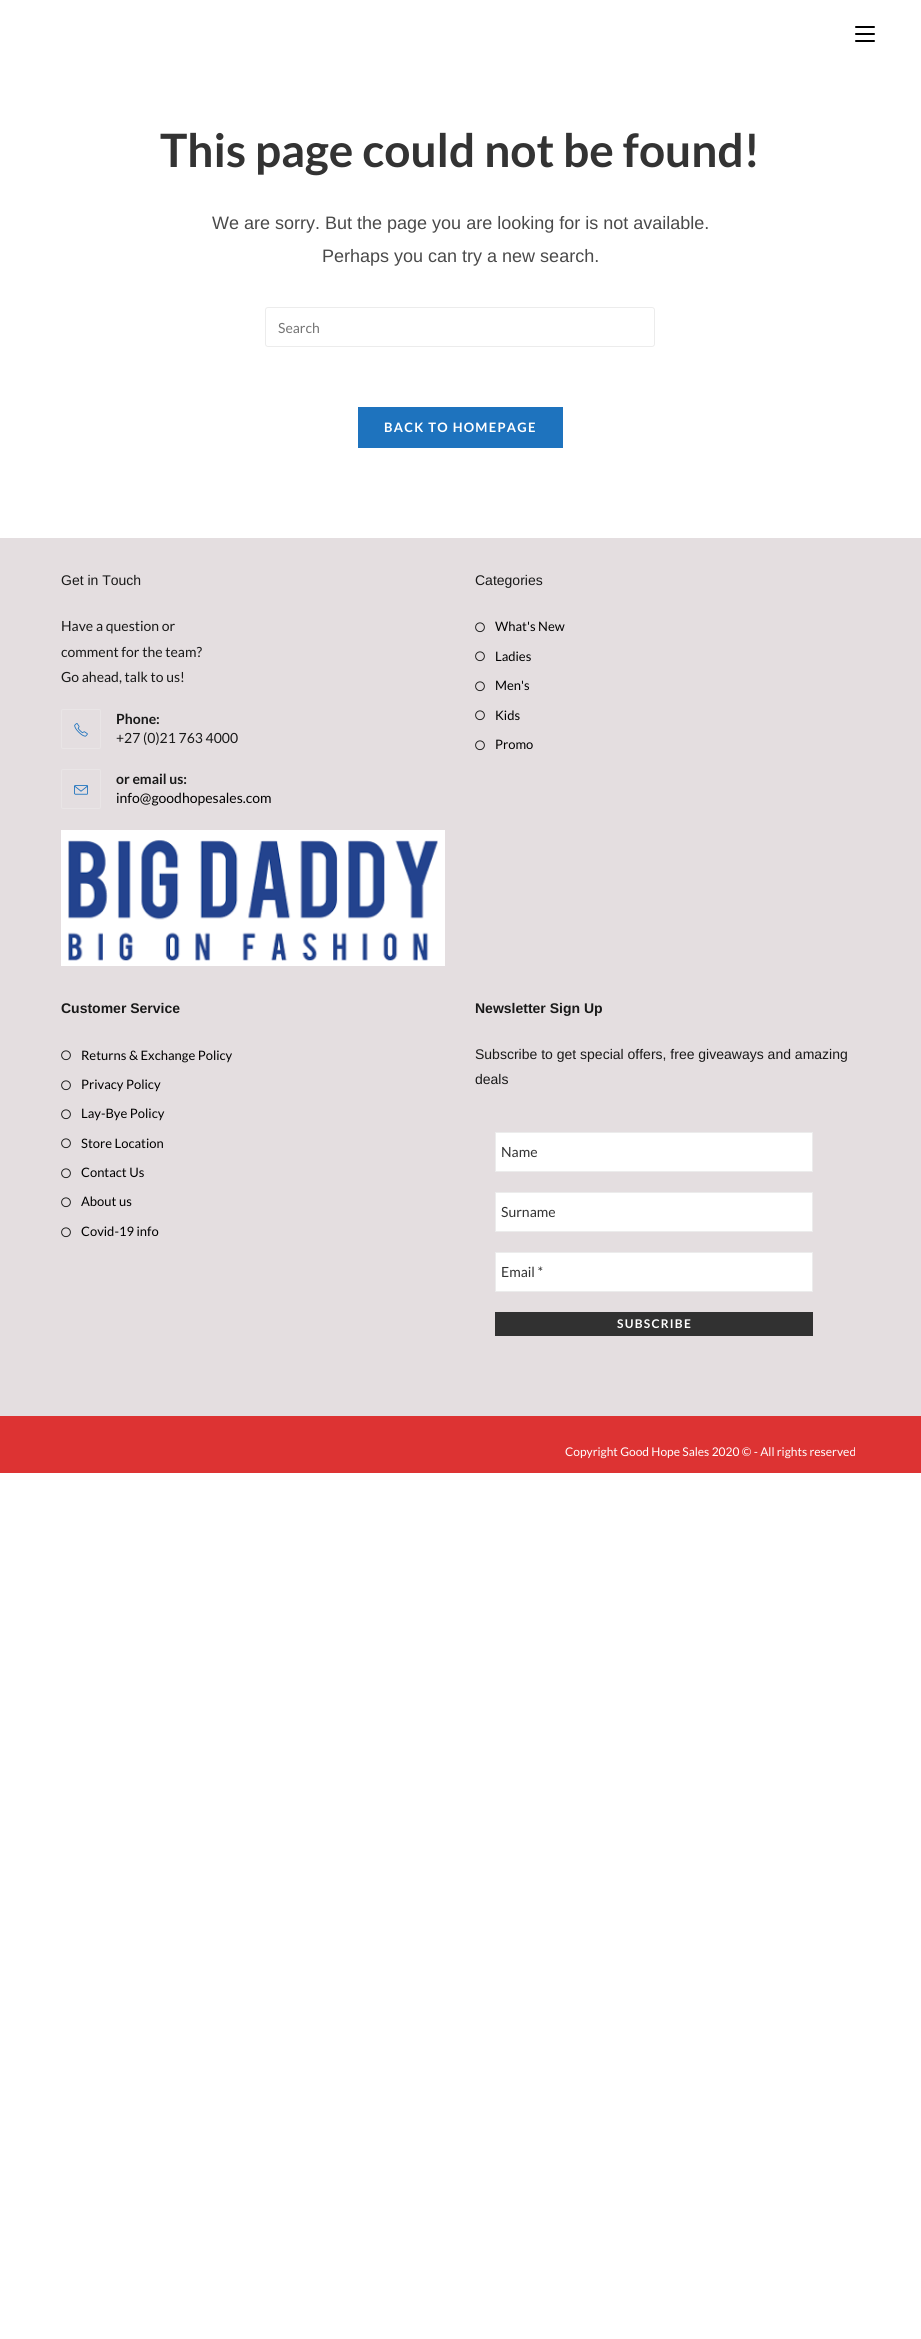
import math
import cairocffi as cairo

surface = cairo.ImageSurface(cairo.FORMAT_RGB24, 921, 2339)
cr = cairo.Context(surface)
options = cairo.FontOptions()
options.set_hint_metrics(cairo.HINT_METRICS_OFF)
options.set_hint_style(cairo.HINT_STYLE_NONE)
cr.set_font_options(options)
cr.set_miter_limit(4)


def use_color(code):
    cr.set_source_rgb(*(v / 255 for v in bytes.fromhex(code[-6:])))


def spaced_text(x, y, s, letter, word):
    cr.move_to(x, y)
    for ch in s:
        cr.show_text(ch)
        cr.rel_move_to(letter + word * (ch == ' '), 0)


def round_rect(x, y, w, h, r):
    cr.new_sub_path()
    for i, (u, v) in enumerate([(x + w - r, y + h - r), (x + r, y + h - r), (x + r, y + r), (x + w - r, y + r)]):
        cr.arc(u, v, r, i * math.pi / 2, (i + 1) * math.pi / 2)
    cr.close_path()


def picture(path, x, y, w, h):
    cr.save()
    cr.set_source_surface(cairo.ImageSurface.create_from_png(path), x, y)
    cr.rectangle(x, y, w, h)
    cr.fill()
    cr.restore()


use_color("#ffffff")
cr.paint()
use_color("#000000")
round_rect(855, 40, 20, 2, 1)
cr.fill()
round_rect(855, 26, 20, 2, 1)
cr.fill()
round_rect(855, 33, 20, 2, 1)
cr.fill()
cr.select_font_face("Lato", cairo.FONT_SLANT_NORMAL, cairo.FONT_WEIGHT_BOLD)
cr.set_font_size(46)
use_color("#333333")
cr.move_to(160, 167)
cr.show_text("This page could not be found!")
cr.select_font_face("Liberation Sans")
cr.set_font_size(18)
use_color("#4a4a4a")
cr.move_to(212, 229)
cr.show_text("We are sorry. But the page you are looking for is not available.")
cr.move_to(322, 262)
cr.show_text("Perhaps you can try a new search.")
round_rect(265.5, 307.5, 389, 39, 2.5)
use_color("#ececec")
cr.set_line_width(1)
cr.stroke()
cr.select_font_face("Lato")
cr.set_font_size(14)
use_color("#757575")
cr.move_to(278, 333)
cr.show_text("Search")
use_color("#1e73be")
cr.rectangle(358, 407, 205, 41)
cr.fill()
cr.select_font_face("Lato", cairo.FONT_SLANT_NORMAL, cairo.FONT_WEIGHT_BOLD)
cr.set_font_size(13)
use_color("#ffffff")
spaced_text(384, 432, "BACK TO HOMEPAGE", 1.25, 0)
use_color("#e4dee0")
cr.rectangle(0, 538, 921, 878)
cr.fill()
cr.select_font_face("Liberation Sans")
cr.set_font_size(14)
use_color("#191919")
cr.move_to(61, 585)
cr.show_text("Get in Touch")
cr.select_font_face("Lato")
cr.move_to(61, 631)
cr.show_text("Have a question or")
cr.move_to(61, 657)
cr.show_text("comment for the team?")
cr.move_to(61, 682)
cr.show_text("Go ahead, talk to us!")
round_rect(61.5, 709.5, 39, 39, 1.5)
use_color("#e9e5e6")
cr.stroke()
picture("img1.png", 74, 723, 14, 14)
cr.select_font_face("Lato", cairo.FONT_SLANT_NORMAL, cairo.FONT_WEIGHT_BOLD)
use_color("#191919")
cr.move_to(116, 724)
cr.show_text("Phone:")
cr.select_font_face("Lato")
cr.move_to(116, 743)
cr.show_text("+27 (0)21 763 4000")
round_rect(61.5, 769.5, 39, 39, 1.5)
use_color("#e9e5e6")
cr.stroke()
picture("img2.png", 74, 785, 14, 10)
cr.select_font_face("Lato", cairo.FONT_SLANT_NORMAL, cairo.FONT_WEIGHT_BOLD)
use_color("#191919")
cr.move_to(116, 784)
cr.show_text("or email us:")
cr.select_font_face("Lato")
use_color("#000000")
cr.move_to(116, 803)
cr.show_text("info@goodhopesales.com")
picture("img3.png", 61, 830, 384, 136)
cr.select_font_face("Liberation Sans")
use_color("#191919")
cr.move_to(475, 585)
cr.show_text("Categories")
picture("img4.png", 475, 622, 10, 11)
cr.select_font_face("Lato")
cr.set_font_size(13)
use_color("#000000")
cr.move_to(495, 631)
cr.show_text("What's New")
picture("img4.png", 475, 651, 10, 11)
cr.move_to(495, 661)
cr.show_text("Ladies")
picture("img4.png", 475, 681, 10, 11)
cr.move_to(495, 690)
cr.show_text("Men's")
picture("img4.png", 475, 710, 10, 11)
cr.move_to(495, 720)
cr.show_text("Kids")
picture("img4.png", 475, 740, 10, 11)
cr.move_to(495, 749)
cr.show_text("Promo")
cr.select_font_face("Liberation Sans", cairo.FONT_SLANT_NORMAL, cairo.FONT_WEIGHT_BOLD)
cr.set_font_size(14)
use_color("#191919")
cr.move_to(61, 1013)
cr.show_text("Customer Service")
picture("img4.png", 61, 1050, 10, 11)
cr.select_font_face("Lato")
cr.set_font_size(13)
use_color("#000000")
cr.move_to(81, 1060)
cr.show_text("Returns & Exchange Policy")
picture("img4.png", 61, 1080, 10, 11)
cr.move_to(81, 1089)
cr.show_text("Privacy Policy")
picture("img4.png", 61, 1109, 10, 11)
cr.move_to(81, 1118)
cr.show_text("Lay-Bye Policy")
picture("img4.png", 61, 1138, 10, 11)
cr.move_to(81, 1148)
cr.show_text("Store Location")
picture("img4.png", 61, 1168, 10, 11)
cr.move_to(81, 1177)
cr.show_text("Contact Us")
picture("img4.png", 61, 1197, 10, 11)
cr.move_to(81, 1206)
cr.show_text("About us")
picture("img4.png", 61, 1227, 10, 11)
cr.move_to(81, 1236)
cr.show_text("Covid-19 info")
cr.select_font_face("Liberation Sans", cairo.FONT_SLANT_NORMAL, cairo.FONT_WEIGHT_BOLD)
cr.set_font_size(14)
use_color("#191919")
cr.move_to(475, 1013)
cr.show_text("Newsletter Sign Up")
cr.select_font_face("Liberation Sans")
cr.move_to(475, 1059)
cr.show_text("Subscribe to get special offers, free giveaways and amazing")
cr.move_to(475, 1084)
cr.show_text("deals")
use_color("#ffffff")
cr.rectangle(495.5, 1132.5, 317, 39)
cr.fill_preserve()
use_color("#ececec")
cr.stroke()
cr.select_font_face("Lato")
use_color("#333333")
cr.move_to(501, 1157)
cr.show_text("Name")
use_color("#ffffff")
cr.rectangle(495.5, 1192.5, 317, 39)
cr.fill_preserve()
use_color("#ececec")
cr.stroke()
use_color("#333333")
cr.move_to(501, 1217)
cr.show_text("Surname")
use_color("#ffffff")
cr.rectangle(495.5, 1252.5, 317, 39)
cr.fill_preserve()
use_color("#ececec")
cr.stroke()
use_color("#333333")
cr.move_to(501, 1277)
cr.show_text("Email *")
use_color("#313131")
cr.rectangle(495, 1312, 318, 24)
cr.fill()
cr.select_font_face("Lato", cairo.FONT_SLANT_NORMAL, cairo.FONT_WEIGHT_BOLD)
cr.set_font_size(12)
use_color("#ffffff")
spaced_text(617, 1328, "SUBSCRIBE", 1.25, 0)
use_color("#dd3333")
cr.rectangle(0, 1416, 921, 57)
cr.fill()
cr.select_font_face("Lato")
use_color("#ffffff")
cr.move_to(565, 1456)
cr.show_text("Copyright Good Hope Sales 2020 © - All rights reserved")
surface.write_to_png("result.png")
